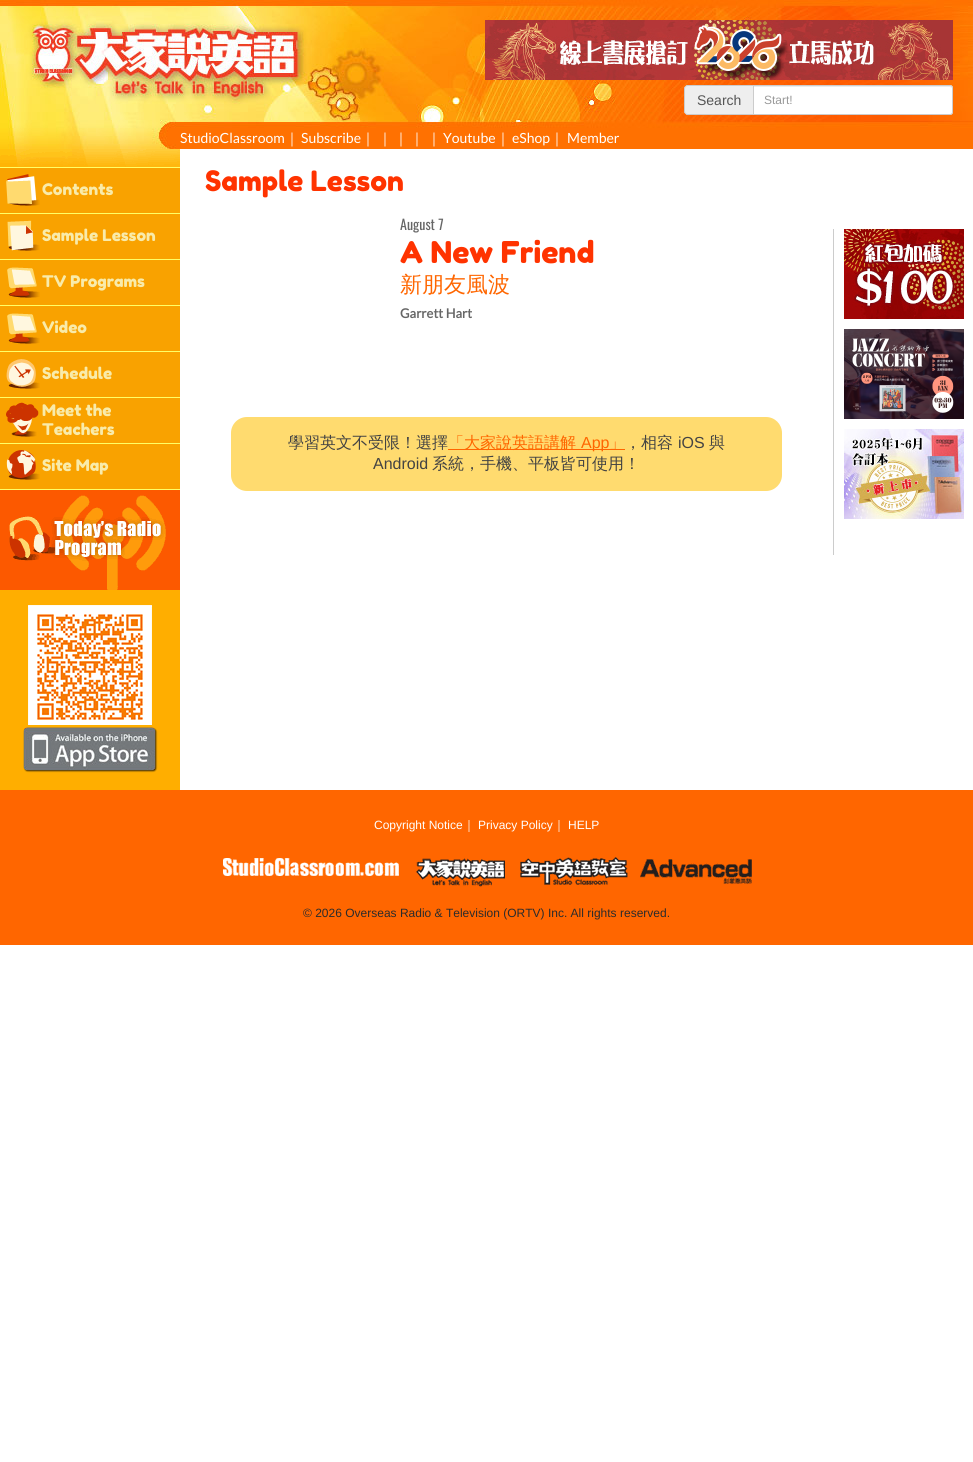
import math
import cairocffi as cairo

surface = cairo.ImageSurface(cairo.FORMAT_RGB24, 973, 1462)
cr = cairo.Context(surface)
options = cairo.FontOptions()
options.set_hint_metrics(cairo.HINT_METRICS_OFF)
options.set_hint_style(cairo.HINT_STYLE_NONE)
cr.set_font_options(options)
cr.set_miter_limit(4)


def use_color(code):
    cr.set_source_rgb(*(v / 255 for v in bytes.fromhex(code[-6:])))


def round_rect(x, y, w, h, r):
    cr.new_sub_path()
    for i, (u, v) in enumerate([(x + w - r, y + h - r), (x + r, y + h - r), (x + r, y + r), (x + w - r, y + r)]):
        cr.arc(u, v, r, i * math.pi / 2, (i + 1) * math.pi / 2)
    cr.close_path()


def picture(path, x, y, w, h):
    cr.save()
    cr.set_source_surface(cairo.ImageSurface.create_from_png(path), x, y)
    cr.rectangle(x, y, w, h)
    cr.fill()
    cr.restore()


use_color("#ffffff")
cr.paint()
picture("img1.png", 0, 0, 973, 149)
picture("img2.png", 485, 20, 468, 60)
use_color("#eeeeee")
cr.new_path()
cr.move_to(688, 85)
cr.line_to(753, 85)
cr.line_to(753, 115)
cr.line_to(688, 115)
cr.curve_to(686, 115, 684, 113, 684, 111)
cr.line_to(684, 89)
cr.curve_to(684, 87, 686, 85, 688, 85)
cr.close_path()
cr.fill()
use_color("#cccccc")
cr.set_fill_rule(cairo.FILL_RULE_EVEN_ODD)
cr.new_path()
cr.move_to(688, 85)
cr.line_to(753, 85)
cr.line_to(753, 115)
cr.line_to(688, 115)
cr.curve_to(686, 115, 684, 113, 684, 111)
cr.line_to(684, 89)
cr.curve_to(684, 87, 686, 85, 688, 85)
cr.close_path()
cr.move_to(688, 86)
cr.line_to(753, 86)
cr.line_to(753, 114)
cr.line_to(688, 114)
cr.curve_to(686, 114, 685, 113, 685, 111)
cr.line_to(685, 89)
cr.curve_to(685, 87, 686, 86, 688, 86)
cr.close_path()
cr.fill()
cr.select_font_face("Liberation Sans")
cr.set_font_size(14)
use_color("#555555")
cr.move_to(697, 105)
cr.show_text("Search")
use_color("#ffffff")
cr.new_path()
cr.move_to(753, 85)
cr.line_to(950, 85)
cr.curve_to(951.5, 85, 953, 86.5, 953, 88)
cr.line_to(953, 112)
cr.curve_to(953, 113.5, 951.5, 115, 950, 115)
cr.line_to(753, 115)
cr.close_path()
cr.fill()
use_color("#ececec")
cr.set_fill_rule(cairo.FILL_RULE_WINDING)
cr.new_path()
cr.move_to(754, 87)
cr.line_to(950, 87)
cr.line_to(952, 88)
cr.line_to(952, 89)
cr.curve_to(952, 88, 952, 86, 950, 86)
cr.line_to(754, 86)
cr.close_path()
cr.fill()
cr.new_path()
cr.move_to(753.5, 85.5)
cr.line_to(950, 85.5)
cr.curve_to(951.5, 85.5, 952.5, 86.5, 952.5, 88)
cr.line_to(952.5, 112)
cr.curve_to(952.5, 113.5, 951.5, 114.5, 950, 114.5)
cr.line_to(753.5, 114.5)
cr.close_path()
use_color("#cccccc")
cr.set_line_width(1)
cr.stroke()
cr.set_font_size(12)
use_color("#999999")
cr.move_to(764, 104)
cr.show_text("Start!")
cr.select_font_face("Lato")
cr.set_font_size(14)
use_color("#ffffff")
cr.move_to(180, 143)
cr.show_text("StudioClassroom")
cr.select_font_face("WenQuanYi Zen Hei Medium")
cr.move_to(285, 143)
cr.show_text("｜")
cr.select_font_face("Lato")
cr.move_to(301, 143)
cr.show_text("Subscribe")
cr.select_font_face("WenQuanYi Zen Hei Medium")
cr.move_to(361, 143)
cr.show_text("｜")
cr.move_to(378, 143)
cr.show_text("｜")
cr.move_to(394, 143)
cr.show_text("｜")
cr.move_to(410, 143)
cr.show_text("｜")
cr.move_to(427, 143)
cr.show_text("｜")
cr.select_font_face("Lato")
cr.move_to(443, 143)
cr.show_text("Youtube")
cr.select_font_face("WenQuanYi Zen Hei Medium")
cr.move_to(496, 143)
cr.show_text("｜")
cr.select_font_face("Lato")
cr.move_to(512, 143)
cr.show_text("eShop")
cr.select_font_face("WenQuanYi Zen Hei Medium")
cr.move_to(550, 143)
cr.show_text("｜")
cr.select_font_face("Lato")
cr.move_to(567, 143)
cr.show_text("Member")
use_color("#ffae00")
cr.rectangle(0, 590, 180, 200)
cr.fill()
picture("img3.png", 0, 149, 180, 18)
use_color("#ffff66")
cr.rectangle(0, 167, 180, 1)
cr.fill()
use_color("#f9a200")
cr.rectangle(0, 168, 180, 45)
cr.fill()
use_color("#ffff66")
cr.rectangle(0, 213, 180, 1)
cr.fill()
picture("img4.png", 6, 174, 34, 32)
cr.select_font_face("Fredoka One")
cr.set_font_size(16)
use_color("#f9ebaa")
cr.move_to(42, 195)
cr.show_text("Contents")
use_color("#f9a200")
cr.rectangle(0, 214, 180, 45)
cr.fill()
use_color("#ffff66")
cr.rectangle(0, 259, 180, 1)
cr.fill()
picture("img5.png", 7, 220, 33, 31)
use_color("#f9ebaa")
cr.move_to(42, 241)
cr.show_text("Sample Lesson")
use_color("#f9a200")
cr.rectangle(0, 260, 180, 45)
cr.fill()
use_color("#ffff66")
cr.rectangle(0, 305, 180, 1)
cr.fill()
picture("img6.png", 7, 267, 33, 31)
use_color("#f9ebaa")
cr.move_to(42, 287)
cr.show_text("TV Programs")
use_color("#f9a200")
cr.rectangle(0, 306, 180, 45)
cr.fill()
use_color("#ffff66")
cr.rectangle(0, 351, 180, 1)
cr.fill()
picture("img6.png", 7, 313, 33, 31)
use_color("#f9ebaa")
cr.move_to(42, 333)
cr.show_text("Video")
use_color("#f9a200")
cr.rectangle(0, 352, 180, 45)
cr.fill()
use_color("#ffff66")
cr.rectangle(0, 397, 180, 1)
cr.fill()
picture("img7.png", 6, 359, 34, 30)
use_color("#f9ebaa")
cr.move_to(42, 379)
cr.show_text("Schedule")
use_color("#f9a200")
cr.rectangle(0, 398, 180, 45)
cr.fill()
use_color("#ffff66")
cr.rectangle(0, 443, 180, 1)
cr.fill()
picture("img8.png", 6, 402, 33, 35)
use_color("#f9ebaa")
cr.move_to(42, 416)
cr.show_text("Meet the")
cr.move_to(42, 435)
cr.show_text("Teachers")
use_color("#f9a200")
cr.rectangle(0, 444, 180, 45)
cr.fill()
use_color("#ffff66")
cr.rectangle(0, 489, 180, 1)
cr.fill()
picture("img9.png", 6, 450, 34, 30)
use_color("#f9ebaa")
cr.move_to(42, 471)
cr.show_text("Site Map")
picture("img10.png", 0, 490, 180, 100)
picture("img11.png", 28, 605, 124, 120)
picture("img12.png", 23, 727, 135, 46)
cr.set_font_size(28)
use_color("#ff3300")
cr.move_to(205, 191)
cr.show_text("Sample Lesson")
use_color("#cccccc")
cr.rectangle(833, 229, 1, 326)
cr.fill()
picture("img13.png", 844, 229, 120, 90)
picture("img14.png", 844, 329, 120, 90)
picture("img15.png", 844, 429, 120, 90)
cr.select_font_face("Oswald")
cr.set_font_size(14)
use_color("#666666")
cr.move_to(400, 230)
cr.show_text("August 7")
cr.select_font_face("Fredoka One")
cr.set_font_size(30)
use_color("#ff3300")
cr.move_to(400, 263)
cr.show_text("A New Friend")
cr.select_font_face("WenQuanYi Zen Hei Medium")
cr.set_font_size(22)
use_color("#ff6600")
cr.move_to(400, 292)
cr.show_text("新朋友風波")
cr.select_font_face("Lato", cairo.FONT_SLANT_NORMAL, cairo.FONT_WEIGHT_BOLD)
cr.set_font_size(13)
use_color("#666666")
cr.move_to(400, 318)
cr.show_text("Garrett Hart")
use_color("#ffdb6f")
round_rect(231, 417, 551, 74, 16)
cr.fill()
cr.select_font_face("WenQuanYi Zen Hei Medium")
cr.set_font_size(16)
use_color("#434343")
cr.move_to(288, 448)
cr.show_text("學習英文不受限！選擇")
use_color("#ff6600")
cr.rectangle(448, 449, 177, 1)
cr.fill()
cr.move_to(448, 448)
cr.show_text("「大家說英語講解")
cr.select_font_face("Liberation Sans")
cr.move_to(581, 448)
cr.show_text("App")
cr.select_font_face("WenQuanYi Zen Hei Medium")
cr.move_to(609, 448)
cr.show_text("」")
use_color("#434343")
cr.move_to(625, 448)
cr.show_text("，相容")
cr.select_font_face("Liberation Sans")
cr.move_to(678, 448)
cr.show_text("iOS")
cr.select_font_face("WenQuanYi Zen Hei Medium")
cr.move_to(709, 448)
cr.show_text("與")
cr.select_font_face("Liberation Sans")
cr.move_to(373, 469)
cr.show_text("Android")
cr.select_font_face("WenQuanYi Zen Hei Medium")
cr.move_to(432, 469)
cr.show_text("系統，手機、平板皆可使用！")
use_color("#ff6600")
cr.rectangle(0, 790, 973, 155)
cr.fill()
cr.select_font_face("Liberation Sans")
cr.set_font_size(12)
use_color("#ffffff")
cr.move_to(374, 829)
cr.show_text("Copyright Notice")
cr.select_font_face("WenQuanYi Zen Hei Medium")
cr.move_to(463, 829)
cr.show_text("｜")
cr.select_font_face("Liberation Sans")
cr.move_to(478, 829)
cr.show_text("Privacy Policy")
cr.select_font_face("WenQuanYi Zen Hei Medium")
cr.move_to(553, 829)
cr.show_text("｜")
cr.select_font_face("Liberation Sans")
cr.move_to(568, 829)
cr.show_text("HELP")
picture("img16.png", 223, 857, 529, 30)
use_color("#2b2b2b")
cr.move_to(303, 917)
cr.show_text("© 2026 Overseas Radio & Television (ORTV) Inc. All rights reserved.")
surface.write_to_png("result.png")
